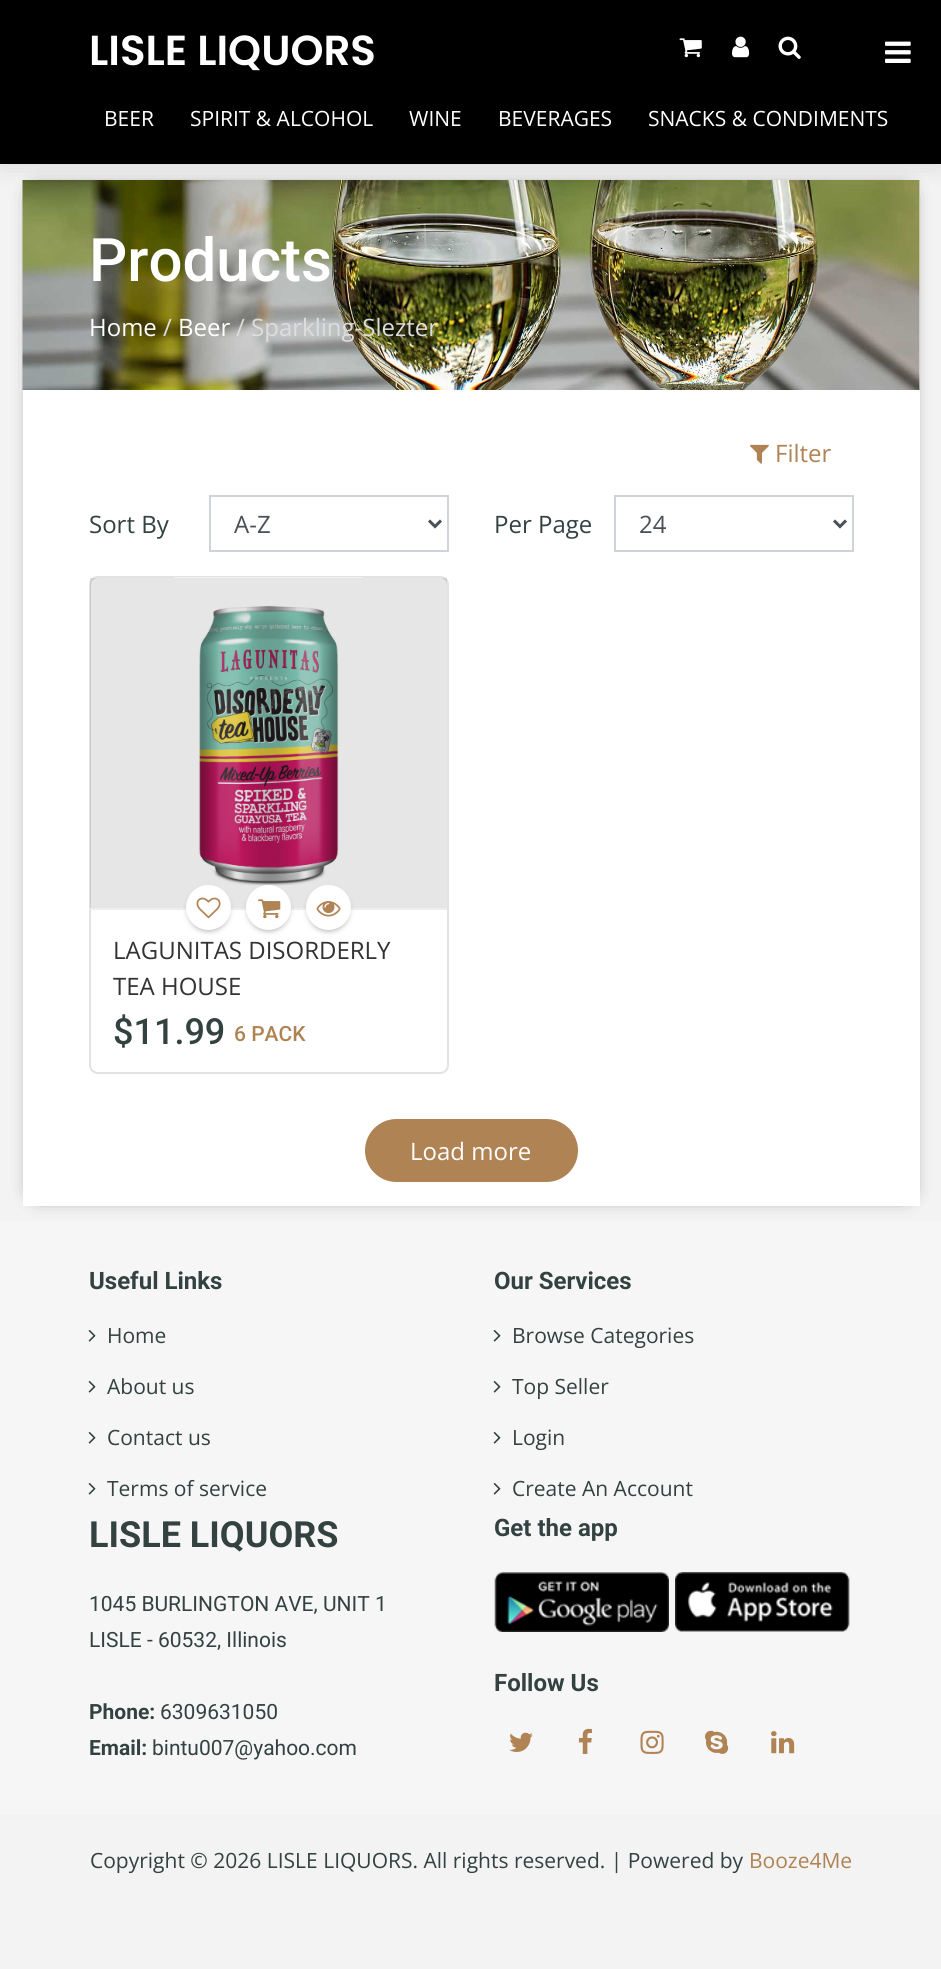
import math
import cairocffi as cairo

surface = cairo.ImageSurface(cairo.FORMAT_RGB24, 941, 1969)
cr = cairo.Context(surface)
options = cairo.FontOptions()
options.set_hint_metrics(cairo.HINT_METRICS_OFF)
options.set_hint_style(cairo.HINT_STYLE_NONE)
cr.set_font_options(options)
cr.set_miter_limit(4)


def use_color(code):
    cr.set_source_rgb(*(v / 255 for v in bytes.fromhex(code[-6:])))


def round_rect(x, y, w, h, r):
    cr.new_sub_path()
    for i, (u, v) in enumerate([(x + w - r, y + h - r), (x + r, y + h - r), (x + r, y + r), (x + w - r, y + r)]):
        cr.arc(u, v, r, i * math.pi / 2, (i + 1) * math.pi / 2)
    cr.close_path()


def shadow(x, y, w, h, r, blur, alpha):
    cr.push_group_with_content(cairo.CONTENT_ALPHA)
    cr.set_operator(cairo.OPERATOR_SOURCE)
    for i in range(15, -16, -2):
        e = blur * i / 6
        if min(w, h) + 2 * e > 0:
            cr.set_source_rgba(0, 0, 0, alpha * math.erfc((i - 1) / 8.5) / 2)
            round_rect(x - e, y - e, w + 2 * e, h + 2 * e, max(0, min(r + e + blur * .6, min(w, h) / 2 + e)))
            cr.fill()
    cr.mask(cr.pop_group())


def picture(path, x, y, w, h):
    cr.save()
    cr.set_source_surface(cairo.ImageSurface.create_from_png(path), x, y)
    cr.rectangle(x, y, w, h)
    cr.fill()
    cr.restore()


use_color("#f3f3f3")
cr.paint()
use_color("#000000")
shadow(38, 195, 867, 996, 0, 11, 1)
use_color("#ffffff")
cr.rectangle(23, 180, 897, 1026)
cr.fill()
picture("img5.png", 22, 180, 898, 210)
use_color("#000000")
shadow(0, 3, 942, 164, 0, 11, 0.1)
use_color("#000000")
cr.rectangle(0, 0, 941, 164)
cr.fill()
cr.select_font_face("Poppins SemiBold")
cr.set_font_size(42)
use_color("#ffffff")
cr.move_to(89, 65)
cr.show_text("LISLE LIQUORS")
picture("img1.png", 679, 38, 23, 20)
picture("img2.png", 732, 36, 18, 22)
picture("img3.png", 778, 36, 23, 23)
cr.select_font_face("Open Sans")
cr.set_font_size(21)
cr.move_to(104, 126)
cr.show_text("BEER")
cr.move_to(190, 126)
cr.show_text("SPIRIT & ALCOHOL")
cr.move_to(409, 126)
cr.show_text("WINE")
cr.move_to(498, 126)
cr.show_text("BEVERAGES")
cr.move_to(648, 126)
cr.show_text("SNACKS & CONDIMENTS")
picture("img4.png", 885, 41, 26, 22)
cr.select_font_face("Roboto Medium")
cr.set_font_size(60)
cr.move_to(89, 281)
cr.show_text("Products")
cr.select_font_face("Open Sans")
cr.set_font_size(24)
cr.move_to(89, 336)
cr.show_text("Home")
use_color("#dddddd")
cr.move_to(163, 336)
cr.show_text("/")
use_color("#ffffff")
cr.move_to(178, 336)
cr.show_text("Beer")
use_color("#dddddd")
cr.move_to(236, 336)
cr.show_text("/ Sparkling-Slezter")
picture("img6.png", 750, 444, 19, 20)
use_color("#af8354")
cr.move_to(775, 462)
cr.show_text("Filter")
use_color("#334240")
cr.move_to(89, 533)
cr.show_text("Sort By")
cr.rectangle(210, 496, 238, 55)
use_color("#ced4da")
cr.stroke()
cr.new_path()
cr.move_to(429, 520.5)
cr.line_to(435, 526.5)
cr.line_to(441, 520.5)
use_color("#495057")
cr.set_line_width(3)
cr.stroke()
cr.move_to(234, 533)
cr.show_text("A-Z")
use_color("#334240")
cr.move_to(494, 533)
cr.show_text("Per Page")
cr.rectangle(615, 496, 238, 55)
use_color("#ced4da")
cr.set_line_width(2)
cr.stroke()
cr.new_path()
cr.move_to(834, 520.5)
cr.line_to(840, 526.5)
cr.line_to(846, 520.5)
use_color("#495057")
cr.set_line_width(3)
cr.stroke()
cr.move_to(639, 533)
cr.show_text("24")
round_rect(90, 577, 358, 496, 8)
use_color("#e2e2e2")
cr.set_line_width(2)
cr.stroke()
picture("img7.png", 174, 577, 189, 309)
cr.set_source_rgba(0, 0, 0, 0.1)
cr.rectangle(90, 578, 357, 330)
cr.fill()
use_color("#eeeeee")
cr.rectangle(90, 908, 357, 2)
cr.fill()
use_color("#000000")
shadow(192, 894, 33, 33, 16.5, 4, 1)
use_color("#ffffff")
cr.arc(208.5, 907.5, 22.5, 0, 2 * math.pi)
cr.fill()
picture("img8.png", 196, 897, 25, 22)
use_color("#000000")
shadow(252, 894, 33, 33, 16.5, 4, 1)
use_color("#ffffff")
cr.arc(268.5, 907.5, 22.5, 0, 2 * math.pi)
cr.fill()
picture("img9.png", 258, 899, 23, 20)
use_color("#000000")
shadow(312, 894, 33, 33, 16.5, 4, 1)
use_color("#ffffff")
cr.arc(328.5, 907.5, 22.5, 0, 2 * math.pi)
cr.fill()
picture("img10.png", 316, 901, 25, 16)
use_color("#333333")
cr.move_to(113, 959)
cr.show_text("LAGUNITAS DISORDERLY")
cr.move_to(113, 995)
cr.show_text("TEA HOUSE")
cr.select_font_face("Roboto Medium")
cr.set_font_size(36)
use_color("#334240")
cr.move_to(113, 1044)
cr.show_text("$11.99")
cr.set_font_size(21)
use_color("#af8354")
cr.move_to(234, 1041)
cr.show_text("6 PACK")
round_rect(365, 1119, 213, 63, 31.5)
cr.fill()
cr.select_font_face("Open Sans")
cr.set_font_size(24)
use_color("#ffffff")
cr.move_to(410, 1160)
cr.show_text("Load more")
use_color("#f6f6f6")
cr.rectangle(0, 1221, 941, 594)
cr.fill()
cr.select_font_face("Roboto", cairo.FONT_SLANT_NORMAL, cairo.FONT_WEIGHT_BOLD)
use_color("#334240")
cr.move_to(89, 1289)
cr.show_text("Useful Links")
picture("img11.png", 88, 1330, 8, 12)
cr.select_font_face("Open Sans")
cr.set_font_size(21)
cr.move_to(107, 1343)
cr.show_text("Home")
picture("img11.png", 88, 1381, 8, 12)
cr.move_to(107, 1394)
cr.show_text("About us")
picture("img11.png", 88, 1432, 8, 12)
cr.move_to(107, 1445)
cr.show_text("Contact us")
picture("img11.png", 88, 1483, 8, 12)
cr.move_to(107, 1496)
cr.show_text("Terms of service")
cr.select_font_face("Roboto", cairo.FONT_SLANT_NORMAL, cairo.FONT_WEIGHT_BOLD)
cr.set_font_size(24)
cr.move_to(494, 1289)
cr.show_text("Our Services")
picture("img11.png", 493, 1330, 8, 12)
cr.select_font_face("Open Sans")
cr.set_font_size(21)
cr.move_to(512, 1343)
cr.show_text("Browse Categories")
picture("img11.png", 493, 1381, 8, 12)
cr.move_to(512, 1394)
cr.show_text("Top Seller")
picture("img11.png", 493, 1432, 8, 12)
cr.move_to(512, 1445)
cr.show_text("Login")
picture("img11.png", 493, 1483, 8, 12)
cr.move_to(512, 1496)
cr.show_text("Create An Account")
cr.select_font_face("Roboto", cairo.FONT_SLANT_NORMAL, cairo.FONT_WEIGHT_BOLD)
cr.set_font_size(36)
cr.move_to(89, 1547)
cr.show_text("LISLE LIQUORS")
cr.select_font_face("Roboto")
cr.set_font_size(21)
cr.move_to(89, 1611)
cr.show_text("1045 BURLINGTON AVE, UNIT 1")
cr.move_to(89, 1647)
cr.show_text("LISLE - 60532, Illinois")
cr.select_font_face("Roboto", cairo.FONT_SLANT_NORMAL, cairo.FONT_WEIGHT_BOLD)
cr.move_to(89, 1719)
cr.show_text("Phone:")
cr.select_font_face("Roboto")
cr.move_to(160, 1719)
cr.show_text("6309631050")
cr.select_font_face("Roboto", cairo.FONT_SLANT_NORMAL, cairo.FONT_WEIGHT_BOLD)
cr.move_to(89, 1755)
cr.show_text("Email:")
cr.select_font_face("Roboto")
cr.move_to(152, 1755)
cr.show_text("bintu007@yahoo.com")
cr.select_font_face("Roboto", cairo.FONT_SLANT_NORMAL, cairo.FONT_WEIGHT_BOLD)
cr.set_font_size(24)
cr.move_to(494, 1536)
cr.show_text("Get the app")
picture("img12.png", 494, 1572, 175, 60)
picture("img13.png", 675, 1572, 175, 60)
cr.move_to(494, 1691)
cr.show_text("Follow Us")
picture("img14.png", 509, 1732, 24, 20)
picture("img15.png", 578, 1728, 14, 26)
picture("img16.png", 640, 1730, 24, 24)
picture("img17.png", 705, 1730, 24, 24)
picture("img18.png", 771, 1731, 24, 23)
cr.select_font_face("Open Sans")
cr.set_font_size(21)
cr.move_to(90, 1868)
cr.show_text("Copyright © 2026 LISLE LIQUORS. All rights reserved. | Powered by")
use_color("#af8354")
cr.move_to(749, 1868)
cr.show_text("Booze4Me")
surface.write_to_png("result.png")
